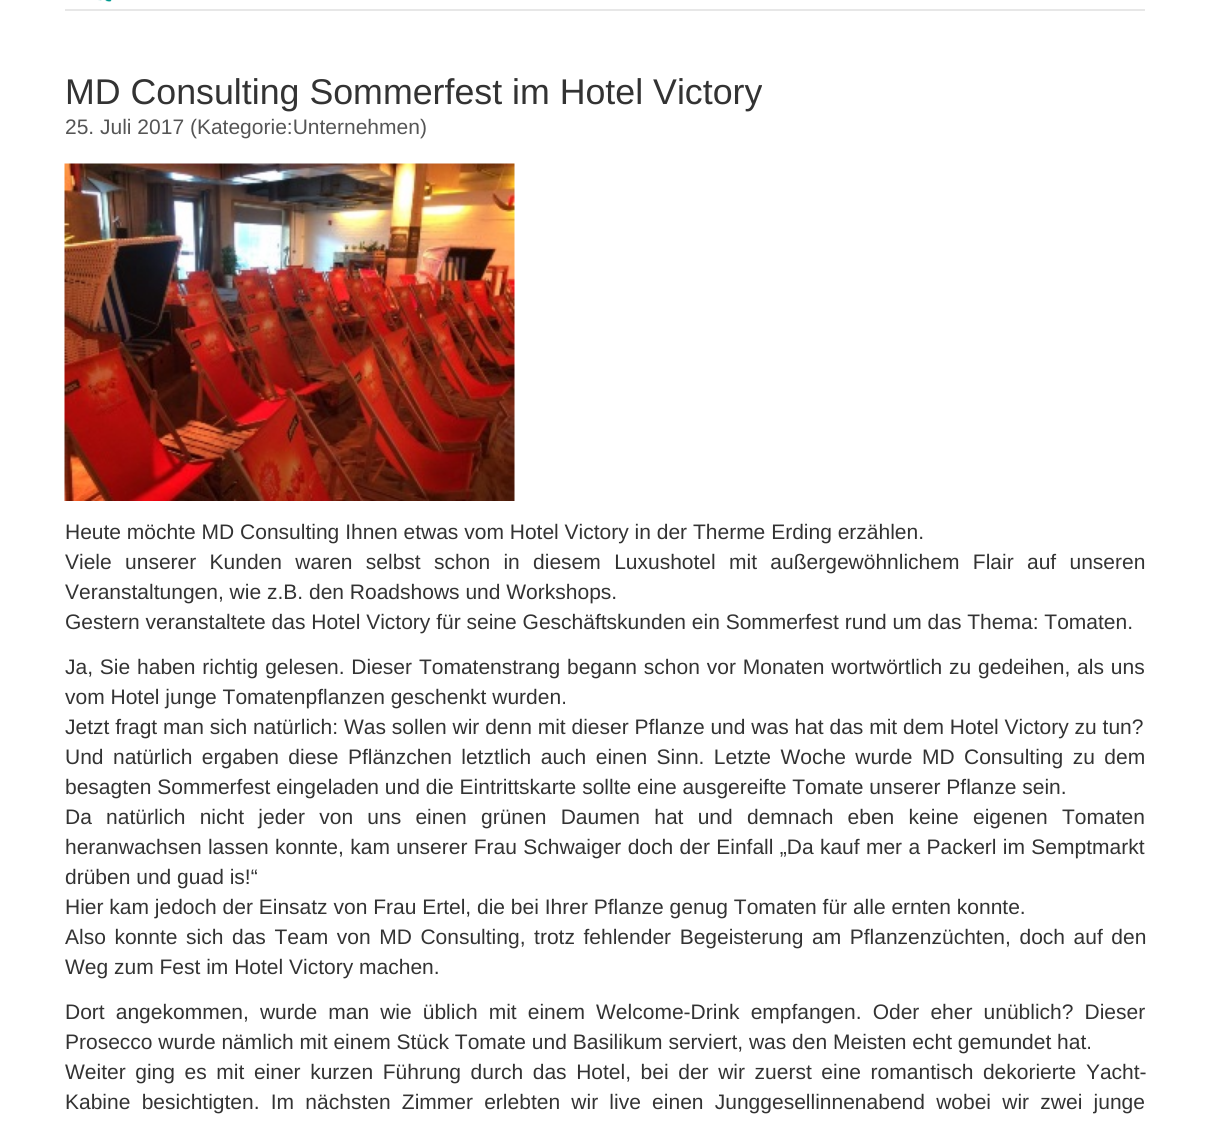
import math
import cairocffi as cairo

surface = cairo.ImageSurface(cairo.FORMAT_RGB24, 1209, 1134)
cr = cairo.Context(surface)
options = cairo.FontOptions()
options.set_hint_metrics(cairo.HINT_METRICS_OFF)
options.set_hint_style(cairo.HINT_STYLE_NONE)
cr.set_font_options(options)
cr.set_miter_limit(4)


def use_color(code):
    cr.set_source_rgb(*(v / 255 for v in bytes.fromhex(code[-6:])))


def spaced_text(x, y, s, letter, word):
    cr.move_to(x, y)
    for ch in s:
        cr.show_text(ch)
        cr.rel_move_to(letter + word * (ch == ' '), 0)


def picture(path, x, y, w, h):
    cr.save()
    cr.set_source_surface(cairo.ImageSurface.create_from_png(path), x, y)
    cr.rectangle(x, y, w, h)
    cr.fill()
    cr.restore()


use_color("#ffffff")
cr.paint()
use_color("#e7e7e7")
cr.rectangle(65, 9, 1080, 2)
cr.fill()
picture("img1.png", 98, 0, 14, 2)
cr.select_font_face("Liberation Sans")
cr.set_font_size(35.75)
use_color("#333333")
cr.move_to(65, 104)
cr.show_text("MD Consulting Sommerfest im Hotel Victory")
cr.set_font_size(21)
use_color("#555555")
cr.move_to(65, 134)
cr.show_text("25. Juli 2017 (Kategorie:Unternehmen)")
picture("img2.png", 64, 163, 451, 338)
use_color("#333333")
cr.move_to(65, 539)
cr.show_text("Heute möchte MD Consulting Ihnen etwas vom Hotel Victory in der Therme Erding erzählen.")
spaced_text(65, 569, "Viele unserer Kunden waren selbst schon in diesem Luxushotel mit außergewöhnlichem Flair auf unseren", 0, 7.5)
cr.move_to(65, 599)
cr.show_text("Veranstaltungen, wie z.B. den Roadshows und Workshops.")
cr.move_to(65, 629)
cr.show_text("Gestern veranstaltete das Hotel Victory für seine Geschäftskunden ein Sommerfest rund um das Thema: Tomaten.")
spaced_text(65, 674, "Ja, Sie haben richtig gelesen. Dieser Tomatenstrang begann schon vor Monaten wortwörtlich zu gedeihen, als uns", 0, 1)
cr.move_to(65, 704)
cr.show_text("vom Hotel junge Tomatenpflanzen geschenkt wurden.")
cr.move_to(65, 734)
cr.show_text("Jetzt fragt man sich natürlich: Was sollen wir denn mit dieser Pflanze und was hat das mit dem Hotel Victory zu tun?")
spaced_text(65, 764, "Und natürlich ergaben diese Pflänzchen letztlich auch einen Sinn. Letzte Woche wurde MD Consulting zu dem", 0, 3.6)
cr.move_to(65, 794)
cr.show_text("besagten Sommerfest eingeladen und die Eintrittskarte sollte eine ausgereifte Tomate unserer Pflanze sein.")
spaced_text(65, 824, "Da natürlich nicht jeder von uns einen grünen Daumen hat und demnach eben keine eigenen Tomaten", 0, 8.4)
spaced_text(65, 854, "heranwachsen lassen konnte, kam unserer Frau Schwaiger doch der Einfall „Da kauf mer a Packerl im Semptmarkt", 0, 0.5)
cr.move_to(65, 884)
cr.show_text("drüben und guad is!“")
cr.move_to(65, 914)
cr.show_text("Hier kam jedoch der Einsatz von Frau Ertel, die bei Ihrer Pflanze genug Tomaten für alle ernten konnte.")
spaced_text(65, 944, "Also konnte sich das Team von MD Consulting, trotz fehlender Begeisterung am Pflanzenzüchten, doch auf den", 0, 2.75)
cr.move_to(65, 974)
cr.show_text("Weg zum Fest im Hotel Victory machen.")
spaced_text(65, 1019, "Dort angekommen, wurde man wie üblich mit einem Welcome-Drink empfangen. Oder eher unüblich? Dieser", 0, 5.25)
cr.move_to(65, 1049)
cr.show_text("Prosecco wurde nämlich mit einem Stück Tomate und Basilikum serviert, was den Meisten echt gemundet hat.")
spaced_text(65, 1079, "Weiter ging es mit einer kurzen Führung durch das Hotel, bei der wir zuerst eine romantisch dekorierte Yacht-", 0, 3.75)
spaced_text(65, 1109, "Kabine besichtigten. Im nächsten Zimmer erlebten wir live einen Junggesellinnenabend wobei wir zwei junge", 0, 5.4)
surface.write_to_png("result.png")
